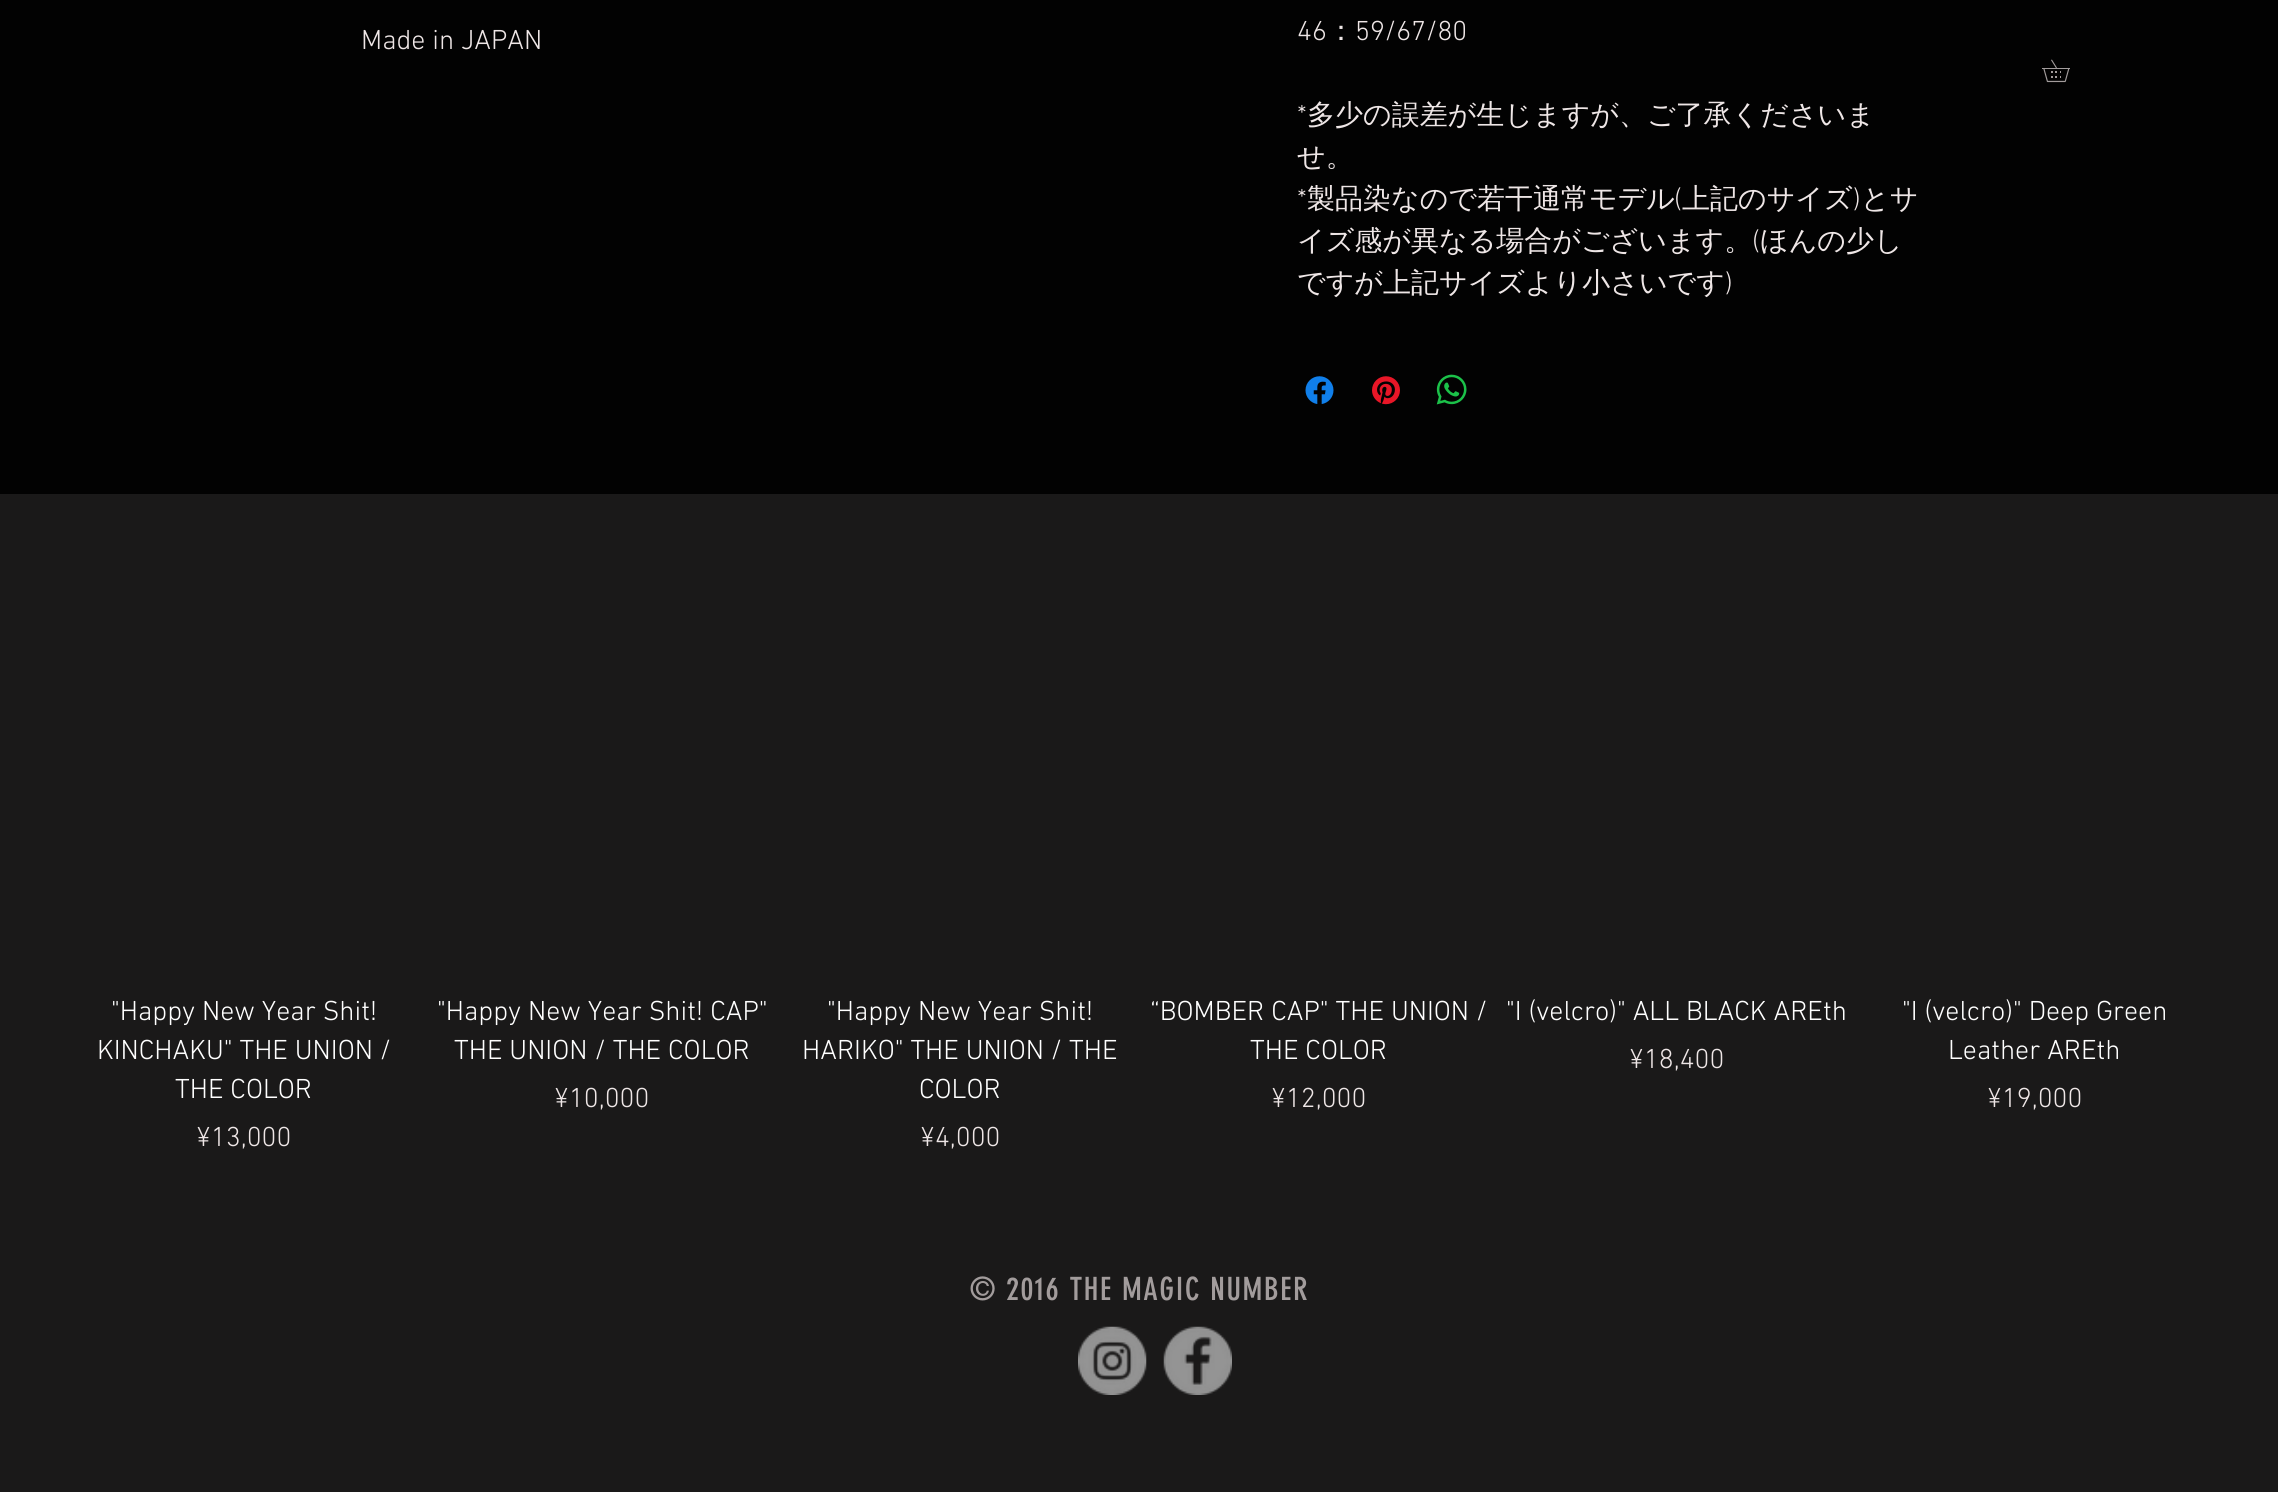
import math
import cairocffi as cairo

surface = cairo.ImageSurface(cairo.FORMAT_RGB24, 2278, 1492)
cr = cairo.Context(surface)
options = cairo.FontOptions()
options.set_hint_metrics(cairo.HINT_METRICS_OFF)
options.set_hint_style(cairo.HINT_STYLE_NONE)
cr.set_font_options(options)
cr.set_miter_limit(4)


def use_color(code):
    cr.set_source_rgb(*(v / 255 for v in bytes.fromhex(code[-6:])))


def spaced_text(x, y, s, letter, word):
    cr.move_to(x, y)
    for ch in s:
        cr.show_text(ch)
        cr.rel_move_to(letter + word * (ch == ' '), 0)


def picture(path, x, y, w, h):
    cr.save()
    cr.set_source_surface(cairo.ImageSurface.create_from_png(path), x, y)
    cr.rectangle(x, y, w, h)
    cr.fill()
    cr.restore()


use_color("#020202")
cr.paint()
cr.select_font_face("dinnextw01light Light")
cr.set_font_size(28)
use_color("#eee6e6")
cr.move_to(361, 49)
cr.show_text("Made in JAPAN")
cr.move_to(1297, 40)
cr.show_text("46")
cr.select_font_face("WenQuanYi Zen Hei Medium")
cr.move_to(1327, 40)
cr.show_text("：")
cr.select_font_face("dinnextw01light Light")
cr.move_to(1355, 40)
cr.show_text("59/67/80")
cr.move_to(1297, 124)
cr.show_text("*")
cr.select_font_face("WenQuanYi Zen Hei Medium")
cr.move_to(1307, 124)
cr.show_text("多少の誤差が生じますが、ご了承くださいま")
cr.move_to(1297, 166)
cr.show_text("せ。")
cr.select_font_face("dinnextw01light Light")
cr.move_to(1297, 208)
cr.show_text("*")
cr.select_font_face("WenQuanYi Zen Hei Medium")
cr.move_to(1307, 208)
cr.show_text("製品染なので若干通常モデル")
cr.select_font_face("dinnextw01light Light")
cr.move_to(1674, 208)
cr.show_text("(")
cr.select_font_face("WenQuanYi Zen Hei Medium")
cr.move_to(1682, 208)
cr.show_text("上記のサイズ")
cr.select_font_face("dinnextw01light Light")
cr.move_to(1853, 208)
cr.show_text(")")
cr.select_font_face("WenQuanYi Zen Hei Medium")
cr.move_to(1861, 208)
cr.show_text("とサ")
cr.move_to(1297, 250)
cr.show_text("イズ感が異なる場合がございます。")
cr.select_font_face("dinnextw01light Light")
cr.move_to(1752, 250)
cr.show_text("(")
cr.select_font_face("WenQuanYi Zen Hei Medium")
cr.move_to(1760, 250)
cr.show_text("ほんの少し")
cr.move_to(1297, 292)
cr.show_text("ですが上記サイズより小さいです")
cr.select_font_face("dinnextw01light Light")
cr.move_to(1725, 292)
cr.show_text(")")
picture("img1.png", 1305, 376, 29, 28)
picture("img2.png", 1372, 376, 28, 29)
picture("img3.png", 1436, 374, 31, 31)
picture("img4.png", 2042, 59, 28, 24)
use_color("#1a1919")
cr.rectangle(0, 494, 2278, 998)
cr.fill()
use_color("#ffffff")
cr.move_to(111, 1020)
cr.show_text("\"Happy New Year Shit!")
cr.move_to(97, 1059)
cr.show_text("KINCHAKU\" THE UNION /")
cr.move_to(175, 1098)
cr.show_text("THE COLOR")
use_color("#eee6e6")
cr.move_to(196, 1146)
cr.show_text("¥13,000")
use_color("#ffffff")
cr.move_to(437, 1020)
cr.show_text("\"Happy New Year Shit! CAP\"")
cr.move_to(454, 1059)
cr.show_text("THE UNION / THE COLOR")
use_color("#eee6e6")
cr.move_to(554, 1107)
cr.show_text("¥10,000")
use_color("#ffffff")
cr.move_to(827, 1020)
cr.show_text("\"Happy New Year Shit!")
cr.move_to(802, 1059)
cr.show_text("HARIKO\" THE UNION / THE")
cr.move_to(919, 1098)
cr.show_text("COLOR")
use_color("#eee6e6")
cr.move_to(920, 1146)
cr.show_text("¥4,000")
use_color("#ffffff")
cr.move_to(1150, 1020)
cr.show_text("“BOMBER CAP\" THE UNION /")
cr.move_to(1250, 1059)
cr.show_text("THE COLOR")
use_color("#eee6e6")
cr.move_to(1271, 1107)
cr.show_text("¥12,000")
use_color("#ffffff")
cr.move_to(1506, 1020)
cr.show_text("\"I (velcro)\" ALL BLACK AREth")
use_color("#eee6e6")
cr.move_to(1629, 1068)
cr.show_text("¥18,400")
use_color("#ffffff")
cr.move_to(1902, 1020)
cr.show_text("\"I (velcro)\" Deep Green")
cr.move_to(1948, 1059)
cr.show_text("Leather AREth")
use_color("#eee6e6")
cr.move_to(1987, 1107)
cr.show_text("¥19,000")
cr.select_font_face("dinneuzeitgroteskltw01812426")
cr.set_font_size(31.5)
use_color("#a29c9c")
spaced_text(970, 1300, "© 2016 THE MAGIC NUMBER", 1.6, 0)
picture("img5.png", 1078, 1326, 69, 69)
picture("img6.png", 1163, 1326, 69, 69)
surface.write_to_png("result.png")
